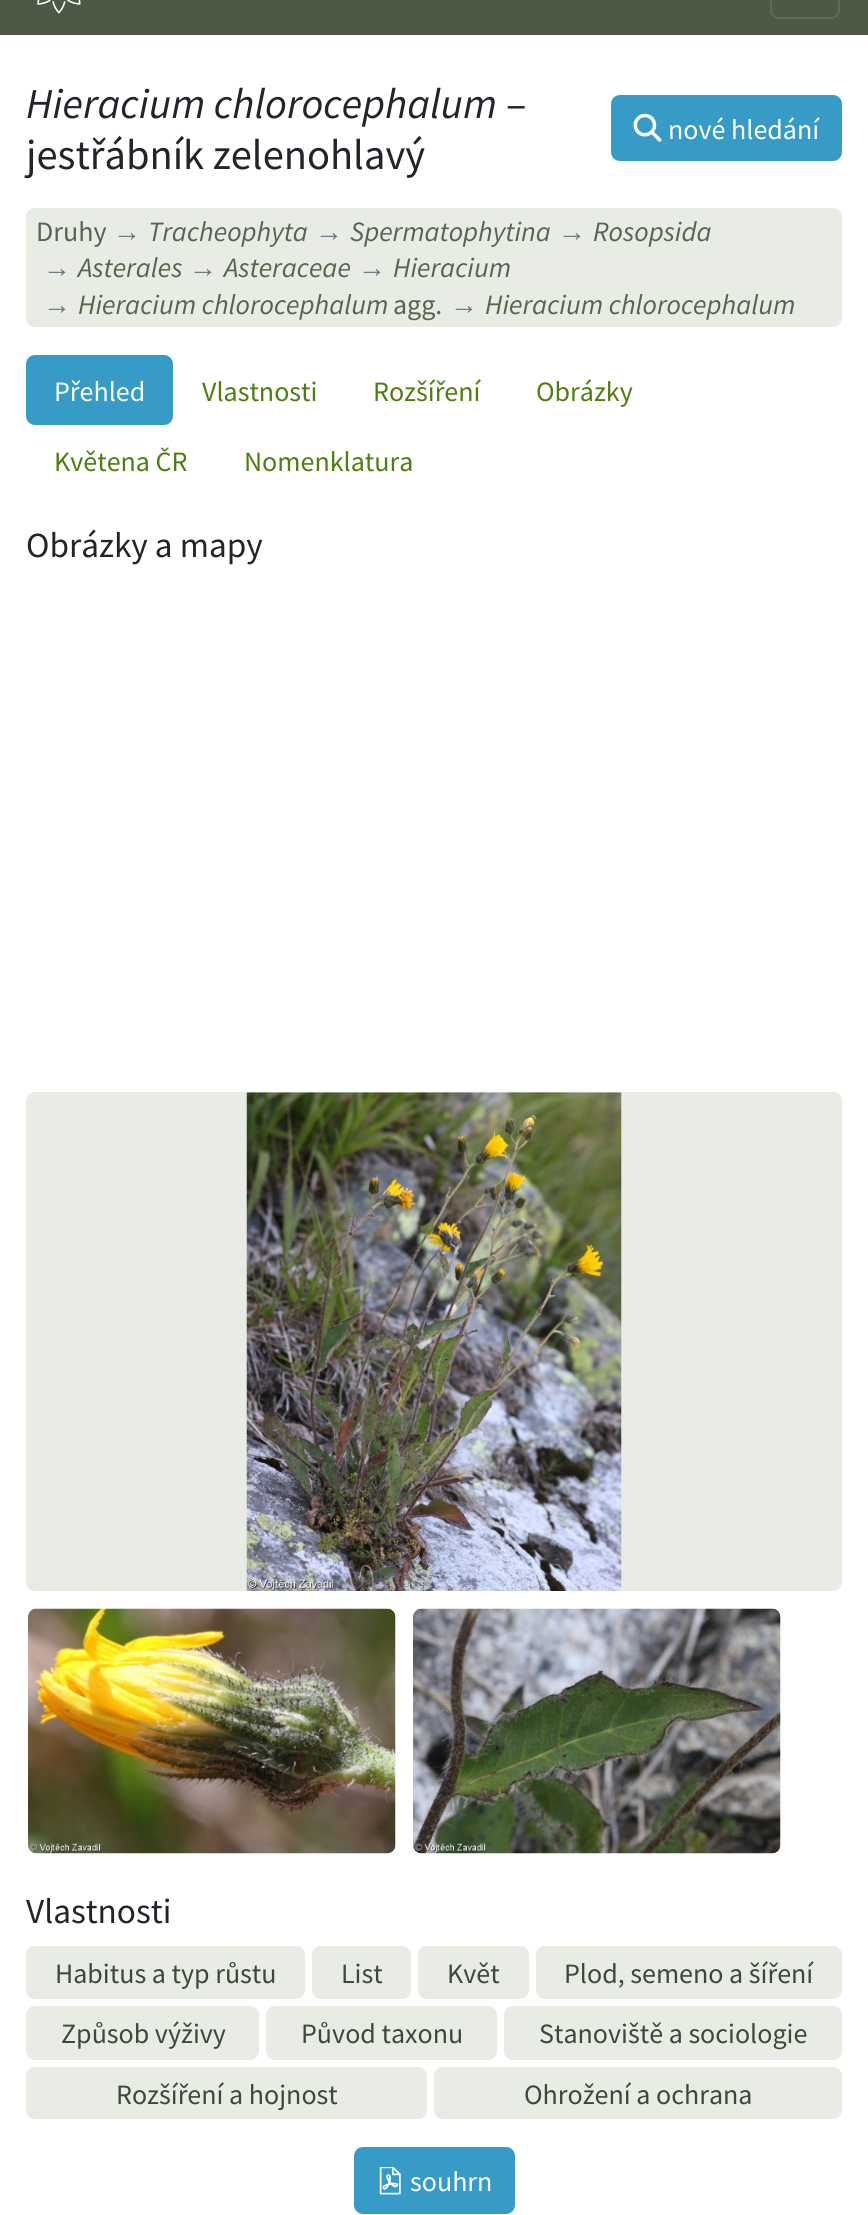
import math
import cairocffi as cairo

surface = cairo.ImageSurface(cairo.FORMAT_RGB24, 868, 2215)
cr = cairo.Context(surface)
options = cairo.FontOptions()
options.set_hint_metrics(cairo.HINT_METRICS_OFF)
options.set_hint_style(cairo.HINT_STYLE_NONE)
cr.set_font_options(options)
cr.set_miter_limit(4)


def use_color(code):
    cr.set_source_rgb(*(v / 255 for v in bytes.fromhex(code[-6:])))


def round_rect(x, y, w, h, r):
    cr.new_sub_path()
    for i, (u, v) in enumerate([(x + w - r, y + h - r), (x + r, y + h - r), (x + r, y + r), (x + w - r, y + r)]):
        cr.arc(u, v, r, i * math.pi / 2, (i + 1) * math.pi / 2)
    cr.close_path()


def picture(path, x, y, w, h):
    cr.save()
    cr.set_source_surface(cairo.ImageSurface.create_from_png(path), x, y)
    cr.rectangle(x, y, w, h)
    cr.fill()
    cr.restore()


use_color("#ffffff")
cr.paint()
use_color("#4d5944")
cr.rectangle(0, 0, 868, 35)
cr.fill()
picture("img1.png", 37, 0, 44, 14)
round_rect(771, -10, 68, 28, 8)
use_color("#5f6a57")
cr.stroke()
cr.select_font_face("Source Sans Pro", cairo.FONT_SLANT_ITALIC)
cr.set_font_size(42.5)
use_color("#212529")
cr.move_to(26, 118)
cr.show_text("Hieracium chlorocephalum")
cr.select_font_face("Source Sans Pro")
cr.move_to(506, 118)
cr.show_text("–")
cr.move_to(26, 169)
cr.show_text("jestřábník zelenohlavý")
use_color("#379bc8")
round_rect(612, 96, 229, 64, 8)
cr.fill_preserve()
cr.stroke()
picture("img2.png", 633, 113, 29, 29)
cr.set_font_size(28)
use_color("#ffffff")
cr.move_to(668, 139)
cr.show_text("nové hledání")
use_color("#e8ece5")
round_rect(26, 208, 816, 119, 9)
cr.fill()
use_color("#57654d")
cr.move_to(36, 241)
cr.show_text("Druhy")
cr.select_font_face("Liberation Serif")
use_color("#6c757d")
cr.move_to(113, 241)
cr.show_text("→")
cr.select_font_face("Source Sans Pro", cairo.FONT_SLANT_ITALIC)
use_color("#57654d")
cr.move_to(148, 241)
cr.show_text("Tracheophyta")
cr.select_font_face("Liberation Serif")
use_color("#6c757d")
cr.move_to(315, 241)
cr.show_text("→")
cr.select_font_face("Source Sans Pro", cairo.FONT_SLANT_ITALIC)
use_color("#57654d")
cr.move_to(350, 241)
cr.show_text("Spermatophytina")
cr.select_font_face("Liberation Serif")
use_color("#6c757d")
cr.move_to(558, 241)
cr.show_text("→")
cr.select_font_face("Source Sans Pro", cairo.FONT_SLANT_ITALIC)
use_color("#57654d")
cr.move_to(593, 241)
cr.show_text("Rosopsida")
cr.select_font_face("Liberation Serif")
use_color("#6c757d")
cr.move_to(43, 277)
cr.show_text("→")
cr.select_font_face("Source Sans Pro", cairo.FONT_SLANT_ITALIC)
use_color("#57654d")
cr.move_to(78, 277)
cr.show_text("Asterales")
cr.select_font_face("Liberation Serif")
use_color("#6c757d")
cr.move_to(189, 277)
cr.show_text("→")
cr.select_font_face("Source Sans Pro", cairo.FONT_SLANT_ITALIC)
use_color("#57654d")
cr.move_to(224, 277)
cr.show_text("Asteraceae")
cr.select_font_face("Liberation Serif")
use_color("#6c757d")
cr.move_to(358, 277)
cr.show_text("→")
cr.select_font_face("Source Sans Pro", cairo.FONT_SLANT_ITALIC)
use_color("#57654d")
cr.move_to(393, 277)
cr.show_text("Hieracium")
cr.select_font_face("Liberation Serif")
use_color("#6c757d")
cr.move_to(43, 314)
cr.show_text("→")
cr.select_font_face("Source Sans Pro", cairo.FONT_SLANT_ITALIC)
use_color("#57654d")
cr.move_to(78, 314)
cr.show_text("Hieracium chlorocephalum")
cr.select_font_face("Source Sans Pro")
cr.move_to(393, 314)
cr.show_text("agg.")
cr.select_font_face("Liberation Serif")
use_color("#6c757d")
cr.move_to(450, 314)
cr.show_text("→")
cr.select_font_face("Source Sans Pro", cairo.FONT_SLANT_ITALIC)
use_color("#57654d")
cr.move_to(485, 314)
cr.show_text("Hieracium chlorocephalum")
use_color("#379bc8")
round_rect(26, 355, 147, 70, 9)
cr.fill()
cr.select_font_face("Source Sans Pro")
use_color("#ffffff")
cr.move_to(54, 401)
cr.show_text("Přehled")
use_color("#4e7e0f")
cr.move_to(202, 401)
cr.show_text("Vlastnosti")
cr.move_to(373, 401)
cr.show_text("Rozšíření")
cr.move_to(536, 401)
cr.show_text("Obrázky")
cr.move_to(54, 471)
cr.show_text("Květena ČR")
cr.move_to(244, 471)
cr.show_text("Nomenklatura")
cr.set_font_size(35.25)
use_color("#212529")
cr.move_to(26, 557)
cr.show_text("Obrázky a mapy")
use_color("#e8ece5")
round_rect(26, 1092, 816, 499, 9)
cr.fill()
picture("img3.png", 246, 1092, 376, 499)
picture("img4.png", 28, 1608, 368, 246)
picture("img5.png", 413, 1608, 368, 246)
use_color("#212529")
cr.move_to(26, 1923)
cr.show_text("Vlastnosti")
use_color("#e8ece5")
round_rect(26, 1946, 279, 53, 9)
cr.fill()
cr.set_font_size(28)
use_color("#3e4837")
cr.move_to(55, 1983)
cr.show_text("Habitus a typ růstu")
use_color("#e8ece5")
round_rect(312, 1946, 99, 53, 9)
cr.fill()
use_color("#3e4837")
cr.move_to(341, 1983)
cr.show_text("List")
use_color("#e8ece5")
round_rect(418, 1946, 111, 53, 9)
cr.fill()
use_color("#3e4837")
cr.move_to(447, 1983)
cr.show_text("Květ")
use_color("#e8ece5")
round_rect(536, 1946, 306, 53, 9)
cr.fill()
use_color("#3e4837")
cr.move_to(564, 1983)
cr.show_text("Plod, semeno a šíření")
use_color("#e8ece5")
round_rect(26, 2006, 233, 54, 9)
cr.fill()
use_color("#3e4837")
cr.move_to(61, 2043)
cr.show_text("Způsob výživy")
use_color("#e8ece5")
round_rect(266, 2006, 231, 54, 9)
cr.fill()
use_color("#3e4837")
cr.move_to(301, 2043)
cr.show_text("Původ taxonu")
use_color("#e8ece5")
round_rect(504, 2006, 338, 54, 9)
cr.fill()
use_color("#3e4837")
cr.move_to(539, 2043)
cr.show_text("Stanoviště a sociologie")
use_color("#e8ece5")
round_rect(26, 2067, 401, 52, 9)
cr.fill()
use_color("#3e4837")
cr.move_to(116, 2104)
cr.show_text("Rozšíření a hojnost")
use_color("#e8ece5")
round_rect(434, 2067, 408, 52, 9)
cr.fill()
use_color("#3e4837")
cr.move_to(524, 2104)
cr.show_text("Ohrožení a ochrana")
use_color("#379bc8")
round_rect(355, 2148, 159, 65, 8)
cr.fill_preserve()
cr.stroke()
picture("img6.png", 379, 2167, 22, 28)
use_color("#ffffff")
cr.move_to(410, 2191)
cr.show_text("souhrn")
surface.write_to_png("result.png")
